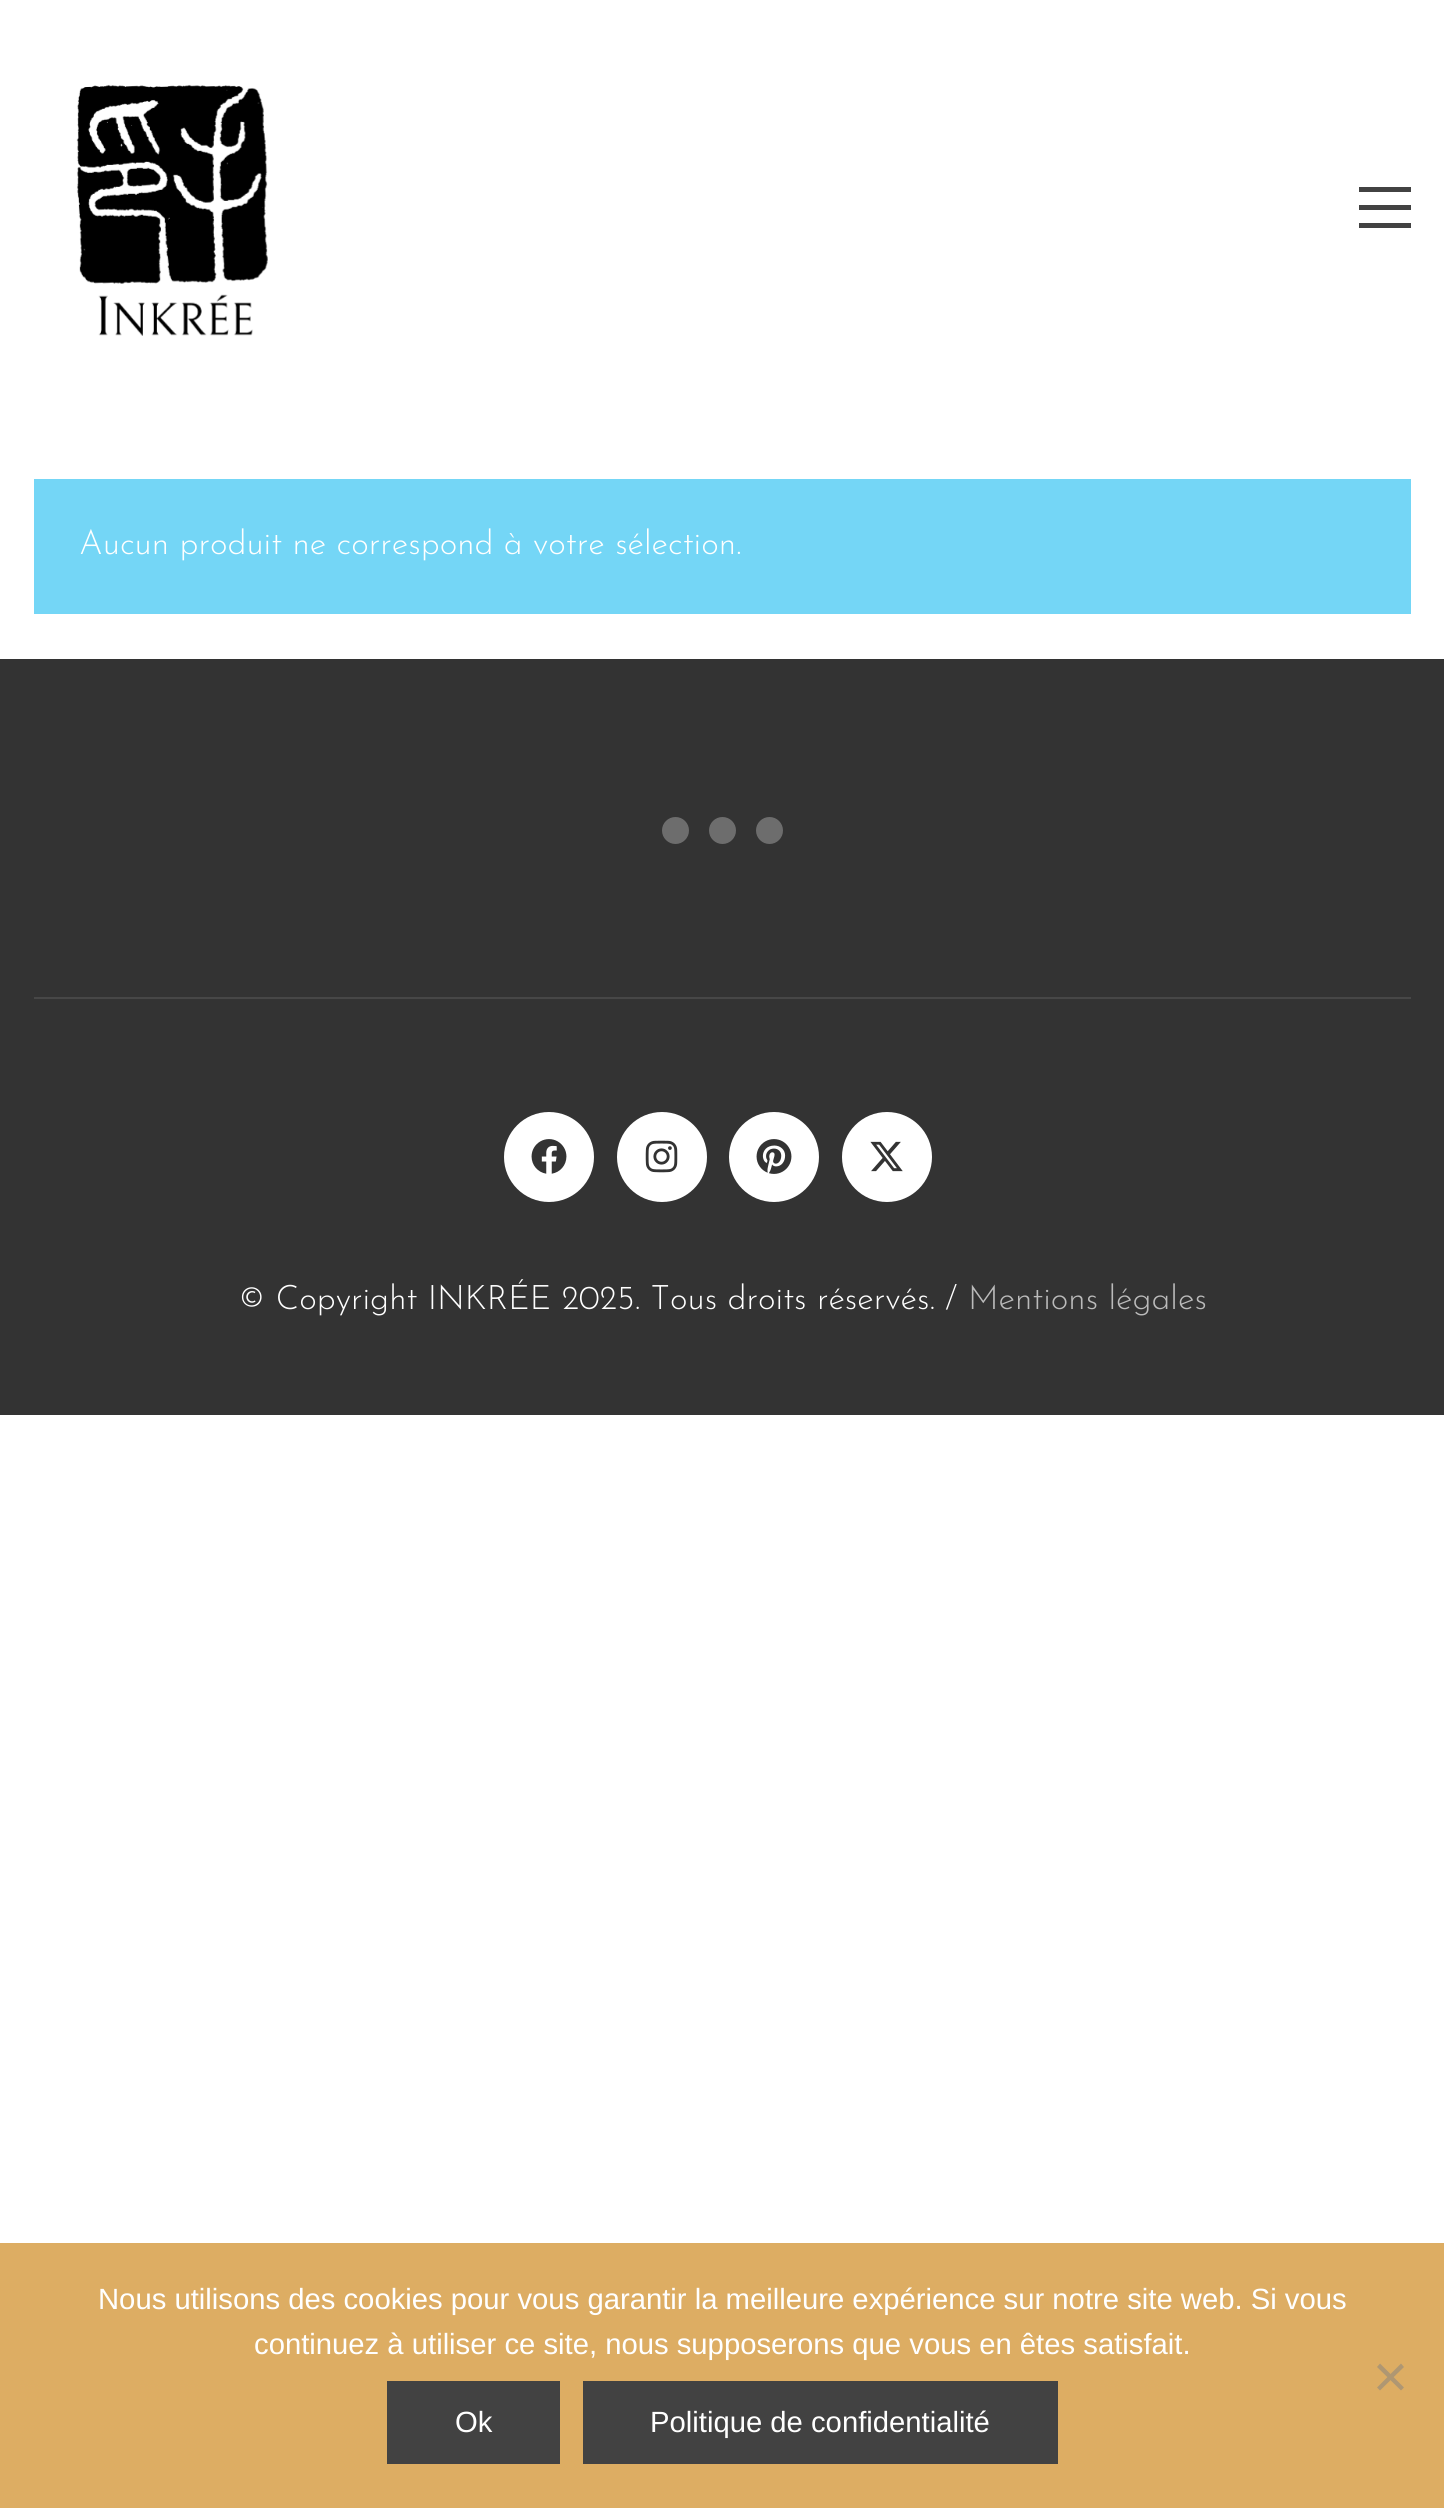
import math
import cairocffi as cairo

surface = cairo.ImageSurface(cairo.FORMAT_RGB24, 1444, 2508)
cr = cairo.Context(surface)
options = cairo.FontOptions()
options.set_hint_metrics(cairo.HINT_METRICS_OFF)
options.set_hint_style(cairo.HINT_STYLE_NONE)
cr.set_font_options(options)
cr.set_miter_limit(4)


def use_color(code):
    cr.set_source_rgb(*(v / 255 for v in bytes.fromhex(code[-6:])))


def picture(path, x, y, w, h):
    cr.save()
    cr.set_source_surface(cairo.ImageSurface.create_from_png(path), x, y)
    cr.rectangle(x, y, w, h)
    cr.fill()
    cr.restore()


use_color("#ffffff")
cr.paint()
picture("img1.png", 76, 84, 192, 252)
use_color("#424242")
cr.rectangle(1359, 187, 52, 5)
cr.fill()
cr.rectangle(1359, 205, 52, 5)
cr.fill()
cr.rectangle(1359, 223, 52, 5)
cr.fill()
use_color("#74d6f6")
cr.rectangle(34, 479, 1377, 135)
cr.fill()
cr.select_font_face("Josefin Sans Light")
cr.set_font_size(33.75)
use_color("#ffffff")
cr.move_to(79, 554)
cr.show_text("Aucun produit ne correspond à votre sélection.")
use_color("#333333")
cr.rectangle(0, 659, 1444, 756)
cr.fill()
use_color("#6d6d6d")
cr.arc(675.5, 830.5, 13.5, 0, 2 * math.pi)
cr.fill()
cr.arc(722.5, 830.5, 13.5, 0, 2 * math.pi)
cr.fill()
cr.arc(769.5, 830.5, 13.5, 0, 2 * math.pi)
cr.fill()
use_color("#474747")
cr.rectangle(34, 997, 1377, 2)
cr.fill()
use_color("#ffffff")
cr.arc(549, 1157, 45, 0, 2 * math.pi)
cr.fill()
picture("img2.png", 531, 1139, 36, 35)
cr.arc(662, 1157, 45, 0, 2 * math.pi)
cr.fill()
picture("img3.png", 645, 1140, 33, 33)
cr.arc(774, 1157, 45, 0, 2 * math.pi)
cr.fill()
picture("img4.png", 756, 1139, 36, 35)
cr.arc(887, 1157, 45, 0, 2 * math.pi)
cr.fill()
picture("img5.png", 870, 1141, 33, 31)
cr.move_to(238, 1309)
cr.show_text("© Copyright INKRÉE 2025. Tous droits réservés. /")
use_color("#bbbbbb")
cr.move_to(968, 1309)
cr.show_text("Mentions légales")
use_color("#ddad63")
cr.rectangle(0, 2243, 1444, 265)
cr.fill()
cr.select_font_face("Liberation Sans")
cr.set_font_size(29.25)
use_color("#ffffff")
cr.move_to(98, 2309)
cr.show_text("Nous utilisons des cookies pour vous garantir la meilleure expérience sur notre site web. Si vous")
cr.move_to(254, 2354)
cr.show_text("continuez à utiliser ce site, nous supposerons que vous en êtes satisfait.")
use_color("#af9772")
cr.new_path()
cr.move_to(1401, 2363.5)
cr.line_to(1404, 2367)
cr.line_to(1380, 2390.5)
cr.line_to(1377, 2387.5)
cr.close_path()
cr.fill()
cr.new_path()
cr.move_to(1377, 2367)
cr.line_to(1380, 2363.5)
cr.line_to(1404, 2387.5)
cr.line_to(1401, 2390.5)
cr.close_path()
cr.fill()
use_color("#424242")
cr.rectangle(387, 2381, 173, 83)
cr.fill()
use_color("#ffffff")
cr.move_to(455, 2432)
cr.show_text("Ok")
use_color("#424242")
cr.rectangle(583, 2381, 475, 83)
cr.fill()
use_color("#ffffff")
cr.move_to(650, 2432)
cr.show_text("Politique de confidentialité")
surface.write_to_png("result.png")
